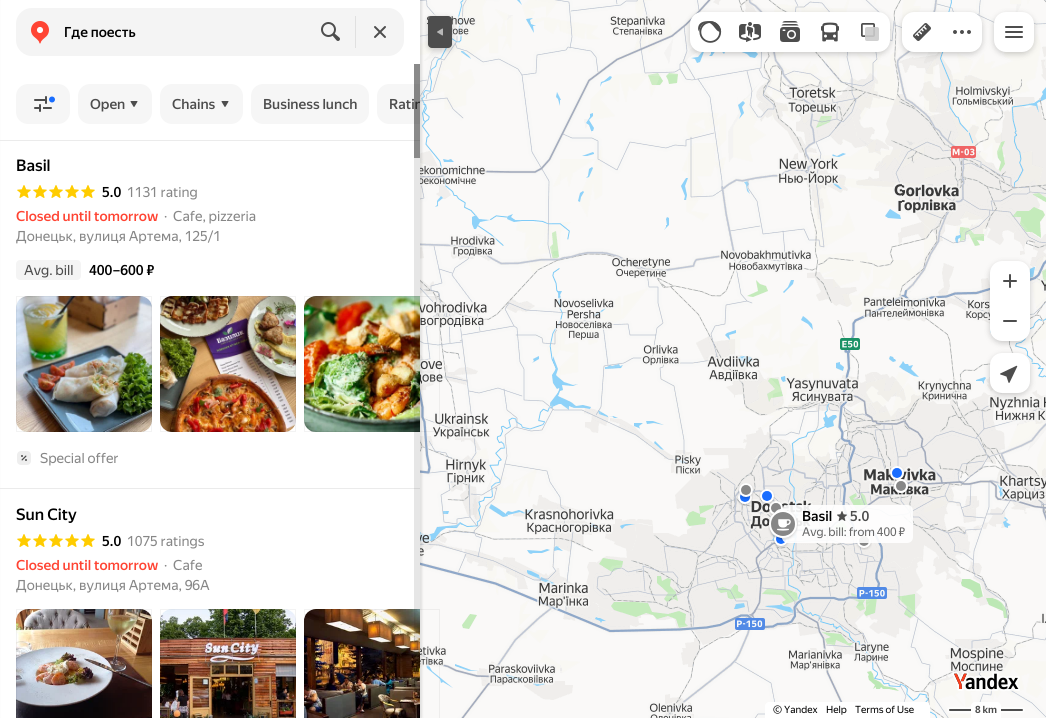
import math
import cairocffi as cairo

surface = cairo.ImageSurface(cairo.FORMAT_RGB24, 1046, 718)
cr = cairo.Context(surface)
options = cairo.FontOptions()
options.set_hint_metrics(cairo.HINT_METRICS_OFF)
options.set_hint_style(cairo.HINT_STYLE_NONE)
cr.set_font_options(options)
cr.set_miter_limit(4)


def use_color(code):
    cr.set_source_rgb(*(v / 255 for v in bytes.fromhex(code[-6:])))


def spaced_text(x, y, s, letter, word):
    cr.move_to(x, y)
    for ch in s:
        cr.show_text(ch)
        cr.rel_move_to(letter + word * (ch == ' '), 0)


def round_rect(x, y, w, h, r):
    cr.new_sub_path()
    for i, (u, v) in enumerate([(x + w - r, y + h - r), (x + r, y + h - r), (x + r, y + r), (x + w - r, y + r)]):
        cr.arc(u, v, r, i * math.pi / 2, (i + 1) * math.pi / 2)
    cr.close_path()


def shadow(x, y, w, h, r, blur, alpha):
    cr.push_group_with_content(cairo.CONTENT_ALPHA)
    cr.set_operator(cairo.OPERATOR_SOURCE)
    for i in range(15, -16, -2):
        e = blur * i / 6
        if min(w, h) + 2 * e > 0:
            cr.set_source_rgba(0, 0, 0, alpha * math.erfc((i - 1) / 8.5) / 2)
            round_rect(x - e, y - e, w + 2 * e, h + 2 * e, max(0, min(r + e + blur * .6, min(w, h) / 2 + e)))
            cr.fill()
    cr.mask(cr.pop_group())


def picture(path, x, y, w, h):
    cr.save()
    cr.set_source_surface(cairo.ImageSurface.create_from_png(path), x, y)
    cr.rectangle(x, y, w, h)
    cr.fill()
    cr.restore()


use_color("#ffffff")
cr.paint()
picture("img27.png", 420, 0, 226, 79)
picture("img30.png", 420, 79, 226, 256)
picture("img33.png", 420, 335, 226, 256)
picture("img36.png", 420, 591, 226, 127)
use_color("#000000")
shadow(2, 0, 420, 718, 0, 1, 0.1)
shadow(428, 18, 24, 32, 4, 3, 0.2)
use_color("#ffffff")
cr.rectangle(1, 0, 419, 718)
cr.fill()
use_color("#f4f4f4")
round_rect(16, 8, 388, 48, 16)
cr.fill()
picture("img1.png", 31, 21, 18, 23)
cr.select_font_face("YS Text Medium")
cr.set_font_size(14)
use_color("#000000")
cr.move_to(64, 37)
cr.show_text("Где поесть")
picture("img2.png", 321, 22, 19, 19)
use_color("#e0e0e0")
cr.rectangle(355, 16, 1, 32)
cr.fill()
picture("img3.png", 374, 26, 12, 12)
picture("img28.png", 646, 0, 256, 79)
use_color("#000000")
shadow(690, 14, 200, 40, 12, 3, 0.2)
use_color("#ffffff")
cr.new_path()
cr.move_to(702, 12)
cr.line_to(730, 12)
cr.line_to(730, 52)
cr.line_to(702, 52)
cr.curve_to(695.5, 52, 690, 46.5, 690, 40)
cr.line_to(690, 24)
cr.curve_to(690, 17.5, 695.5, 12, 702, 12)
cr.close_path()
cr.fill()
picture("img4.png", 698, 21, 24, 22)
cr.rectangle(730, 12, 120, 40)
cr.fill()
picture("img5.png", 739, 22, 22, 20)
cr.new_path()
cr.move_to(850, 12)
cr.line_to(878, 12)
cr.curve_to(884.5, 12, 890, 17.5, 890, 24)
cr.line_to(890, 40)
cr.curve_to(890, 46.5, 884.5, 52, 878, 52)
cr.line_to(850, 52)
cr.close_path()
cr.fill()
picture("img6.png", 861, 23, 18, 18)
picture("img7.png", 780, 21, 20, 21)
picture("img8.png", 821, 22, 18, 20)
picture("img29.png", 902, 0, 144, 79)
use_color("#000000")
shadow(902, 14, 80, 40, 12, 3, 0.2)
use_color("#ffffff")
cr.new_path()
cr.move_to(914, 12)
cr.line_to(942, 12)
cr.line_to(942, 52)
cr.line_to(914, 52)
cr.curve_to(907.5, 52, 902, 46.5, 902, 40)
cr.line_to(902, 24)
cr.curve_to(902, 17.5, 907.5, 12, 914, 12)
cr.close_path()
cr.fill()
picture("img9.png", 913, 23, 18, 18)
cr.new_path()
cr.move_to(942, 12)
cr.line_to(970, 12)
cr.curve_to(976.5, 12, 982, 17.5, 982, 24)
cr.line_to(982, 40)
cr.curve_to(982, 46.5, 976.5, 52, 970, 52)
cr.line_to(942, 52)
cr.close_path()
cr.fill()
picture("img10.png", 953, 30, 18, 4)
use_color("#000000")
shadow(994, 14, 40, 40, 12, 3, 0.2)
use_color("#ffffff")
round_rect(994, 12, 40, 40, 12)
cr.fill()
picture("img11.png", 1005, 26, 18, 12)
picture("img32.png", 902, 79, 144, 256)
picture("img35.png", 902, 335, 144, 256)
use_color("#000000")
shadow(990, 263, 40, 80, 12, 3, 0.2)
use_color("#ffffff")
cr.new_path()
cr.move_to(1002, 261)
cr.line_to(1018, 261)
cr.curve_to(1024.5, 261, 1030, 266.5, 1030, 273)
cr.line_to(1030, 301)
cr.line_to(990, 301)
cr.line_to(990, 273)
cr.curve_to(990, 266.5, 995.5, 261, 1002, 261)
cr.close_path()
cr.fill()
picture("img12.png", 1003, 274, 14, 14)
cr.new_path()
cr.move_to(990, 301)
cr.line_to(1030, 301)
cr.line_to(1030, 329)
cr.curve_to(1030, 335.5, 1024.5, 341, 1018, 341)
cr.line_to(1002, 341)
cr.curve_to(995.5, 341, 990, 335.5, 990, 329)
cr.close_path()
cr.fill()
picture("img13.png", 1003, 320, 14, 2)
use_color("#000000")
shadow(990, 355, 40, 40, 12, 3, 0.2)
use_color("#ffffff")
round_rect(990, 353, 40, 40, 12)
cr.fill()
picture("img14.png", 1000, 365, 18, 18)
use_color("#4d4d4d")
round_rect(428, 16, 24, 32, 4)
cr.fill()
picture("img15.png", 437, 28, 6, 8)
use_color("#ebebeb")
cr.rectangle(0, 140, 420, 1)
cr.fill()
use_color("#f6f6f6")
cr.new_path()
cr.move_to(389, 84)
cr.line_to(420, 84)
cr.line_to(420, 124)
cr.line_to(389, 124)
cr.curve_to(382.5, 124, 377, 118.5, 377, 112)
cr.line_to(377, 96)
cr.curve_to(377, 89.5, 382.5, 84, 389, 84)
cr.close_path()
cr.fill()
use_color("#ebebeb")
cr.rectangle(0, 488, 420, 1)
cr.fill()
picture("img21.png", 304, 296, 116, 136)
cr.rectangle(304.5, 296.5, 135, 135)
cr.set_source_rgba(0, 0, 0, 0.05)
cr.set_line_width(1)
cr.stroke()
picture("img25.png", 304, 609, 116, 109)
cr.rectangle(304.5, 609.5, 135, 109)
cr.stroke()
cr.set_source_rgba(0, 0, 0, 0.1)
cr.rectangle(414, 64, 6, 654)
cr.fill()
cr.save()
cr.rectangle(0, 84, 420, 60)
cr.clip()
use_color("#4d4d4d")
cr.move_to(389, 109)
cr.show_text("Ratin")
cr.restore()
cr.set_source_rgba(0, 0, 0, 0.4)
cr.rectangle(414, 64, 6, 94)
cr.fill()
use_color("#f6f6f6")
round_rect(16, 84, 54, 40, 12)
cr.fill()
picture("img16.png", 34, 96, 21, 16)
round_rect(78, 84, 74, 40, 12)
cr.fill()
use_color("#4d4d4d")
cr.move_to(90, 109)
cr.show_text("Open")
picture("img17.png", 130, 101, 8, 6)
use_color("#f6f6f6")
round_rect(160, 84, 83, 40, 12)
cr.fill()
use_color("#4d4d4d")
cr.move_to(172, 109)
cr.show_text("Chains")
picture("img17.png", 221, 101, 8, 6)
use_color("#f6f6f6")
round_rect(251, 84, 118, 40, 12)
cr.fill()
use_color("#4d4d4d")
cr.move_to(263, 109)
cr.show_text("Business lunch")
cr.set_font_size(16)
use_color("#000000")
cr.move_to(16, 171)
cr.show_text("Basil")
picture("img18.png", 17, 185, 14, 13)
picture("img18.png", 33, 185, 14, 13)
picture("img18.png", 49, 185, 14, 13)
picture("img18.png", 65, 185, 14, 13)
picture("img18.png", 81, 185, 14, 13)
cr.set_font_size(14)
cr.move_to(102, 197)
cr.show_text("5.0")
cr.select_font_face("YS Text")
use_color("#878787")
cr.move_to(127, 197)
cr.show_text("1131 rating")
cr.select_font_face("YS Text Medium")
use_color("#ff4433")
cr.move_to(16, 221)
cr.show_text("Closed until tomorrow")
cr.select_font_face("YS Text")
use_color("#878787")
cr.move_to(164, 221)
cr.show_text("·")
cr.move_to(173, 221)
cr.show_text("Cafe, pizzeria")
cr.move_to(16, 241)
cr.show_text("Донецьк, вулиця Артема, 125/1")
use_color("#f4f4f4")
round_rect(16, 260, 65, 20, 4)
cr.fill()
use_color("#4d4d4d")
cr.move_to(24, 275)
cr.show_text("Avg. bill")
cr.select_font_face("YS Text Medium")
use_color("#000000")
cr.move_to(89, 275)
cr.show_text("400–600 ₽")
picture("img19.png", 16, 296, 136, 136)
cr.rectangle(16.5, 296.5, 135, 135)
cr.set_source_rgba(0, 0, 0, 0.05)
cr.stroke()
picture("img20.png", 160, 296, 136, 136)
cr.rectangle(160.5, 296.5, 135, 135)
cr.stroke()
picture("img22.png", 17, 451, 14, 14)
cr.select_font_face("YS Text")
use_color("#878787")
cr.move_to(40, 463)
cr.show_text("Special offer")
cr.select_font_face("YS Text Medium")
cr.set_font_size(16)
use_color("#000000")
cr.move_to(16, 520)
cr.show_text("Sun City")
picture("img18.png", 17, 534, 14, 13)
picture("img18.png", 33, 534, 14, 13)
picture("img18.png", 49, 534, 14, 13)
picture("img18.png", 65, 534, 14, 13)
picture("img18.png", 81, 534, 14, 13)
cr.set_font_size(14)
cr.move_to(102, 546)
cr.show_text("5.0")
cr.select_font_face("YS Text")
use_color("#878787")
cr.move_to(127, 546)
cr.show_text("1075 ratings")
cr.select_font_face("YS Text Medium")
use_color("#ff4433")
cr.move_to(16, 570)
cr.show_text("Closed until tomorrow")
cr.select_font_face("YS Text")
use_color("#878787")
cr.move_to(164, 570)
cr.show_text("·")
cr.move_to(173, 570)
cr.show_text("Cafe")
cr.move_to(16, 590)
cr.show_text("Донецьк, вулиця Артема, 96А")
picture("img23.png", 16, 609, 136, 109)
cr.rectangle(16.5, 609.5, 135, 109)
cr.set_source_rgba(0, 0, 0, 0.05)
cr.stroke()
picture("img24.png", 160, 609, 136, 109)
cr.rectangle(160.5, 609.5, 135, 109)
cr.stroke()
picture("img38.png", 902, 591, 144, 127)
picture("img26.png", 952, 671, 68, 21)
picture("img37.png", 646, 591, 256, 127)
use_color("#ffffff")
cr.new_path()
cr.move_to(769, 702)
cr.line_to(926, 702)
cr.curve_to(928, 702, 930, 704, 930, 706)
cr.line_to(930, 718)
cr.line_to(765, 718)
cr.line_to(765, 706)
cr.curve_to(765, 704, 767, 702, 769, 702)
cr.close_path()
cr.fill()
cr.set_font_size(10)
use_color("#000000")
cr.move_to(773, 713)
cr.show_text("© Yandex")
cr.move_to(826, 713)
cr.show_text("Help")
cr.move_to(855, 713)
cr.show_text("Terms of Use")
cr.set_source_rgba(1, 1, 1, 0.6)
round_rect(947, 707, 78, 6, 3)
cr.fill()
use_color("#4d4d4d")
round_rect(949, 709, 74, 2, 1)
cr.fill()
use_color("#ffffff")
cr.new_path()
cr.move_to(975, 702)
cr.line_to(997, 702)
cr.curve_to(999, 702, 1001, 704, 1001, 706)
cr.line_to(1001, 718)
cr.line_to(971, 718)
cr.line_to(971, 706)
cr.curve_to(971, 704, 973, 702, 975, 702)
cr.close_path()
cr.fill()
cr.select_font_face("YS Text", cairo.FONT_SLANT_NORMAL, cairo.FONT_WEIGHT_BOLD)
use_color("#4d4d4d")
cr.move_to(975, 713)
cr.show_text("8 km")
picture("img31.png", 646, 79, 256, 256)
picture("img34.png", 646, 335, 256, 256)
picture("img39.png", 889, 466, 16, 16)
picture("img40.png", 893, 479, 16, 16)
picture("img44.png", 737, 492, 16, 14)
picture("img41.png", 738, 483, 16, 16)
picture("img45.png", 768, 501, 16, 15)
picture("img42.png", 759, 489, 16, 16)
picture("img43.png", 893, 479, 16, 16)
picture("img48.png", 779, 509, 10, 3)
picture("img46.png", 773, 509, 13, 6)
picture("img47.png", 770, 529, 6, 10)
picture("img49.png", 787, 528, 10, 11)
picture("img58.png", 773, 535, 16, 13)
picture("img55.png", 777, 533, 16, 8)
picture("img53.png", 772, 532, 10, 6)
picture("img54.png", 772, 532, 6, 5)
picture("img56.png", 777, 533, 16, 8)
cr.set_source_rgba(1, 1, 1, 0.9)
cr.new_path()
cr.move_to(788, 505)
cr.line_to(800, 505)
cr.line_to(800, 543)
cr.line_to(788, 543)
cr.curve_to(784.5, 543, 782, 540.5, 782, 537)
cr.line_to(782, 511)
cr.curve_to(782, 507.5, 784.5, 505, 788, 505)
cr.close_path()
cr.fill()
picture("img50.png", 768, 510, 30, 30)
picture("img51.png", 777, 519, 14, 12)
picture("img57.png", 856, 534, 16, 16)
cr.new_path()
cr.move_to(800, 505)
cr.line_to(907, 505)
cr.curve_to(910.5, 505, 913, 507.5, 913, 511)
cr.line_to(913, 537)
cr.curve_to(913, 540.5, 910.5, 543, 907, 543)
cr.line_to(800, 543)
cr.close_path()
cr.fill()
cr.select_font_face("YS Text Medium")
cr.set_font_size(14)
use_color("#000000")
cr.move_to(802, 521)
cr.show_text("Basil")
picture("img52.png", 837, 511, 10, 10)
use_color("#4d4d4d")
cr.move_to(850, 521)
cr.show_text("5.0")
cr.select_font_face("YS Text")
cr.set_font_size(12)
use_color("#666666")
spaced_text(802, 536, "Avg. bill: from 400 ₽", 0, -0.5)
surface.write_to_png("result.png")
